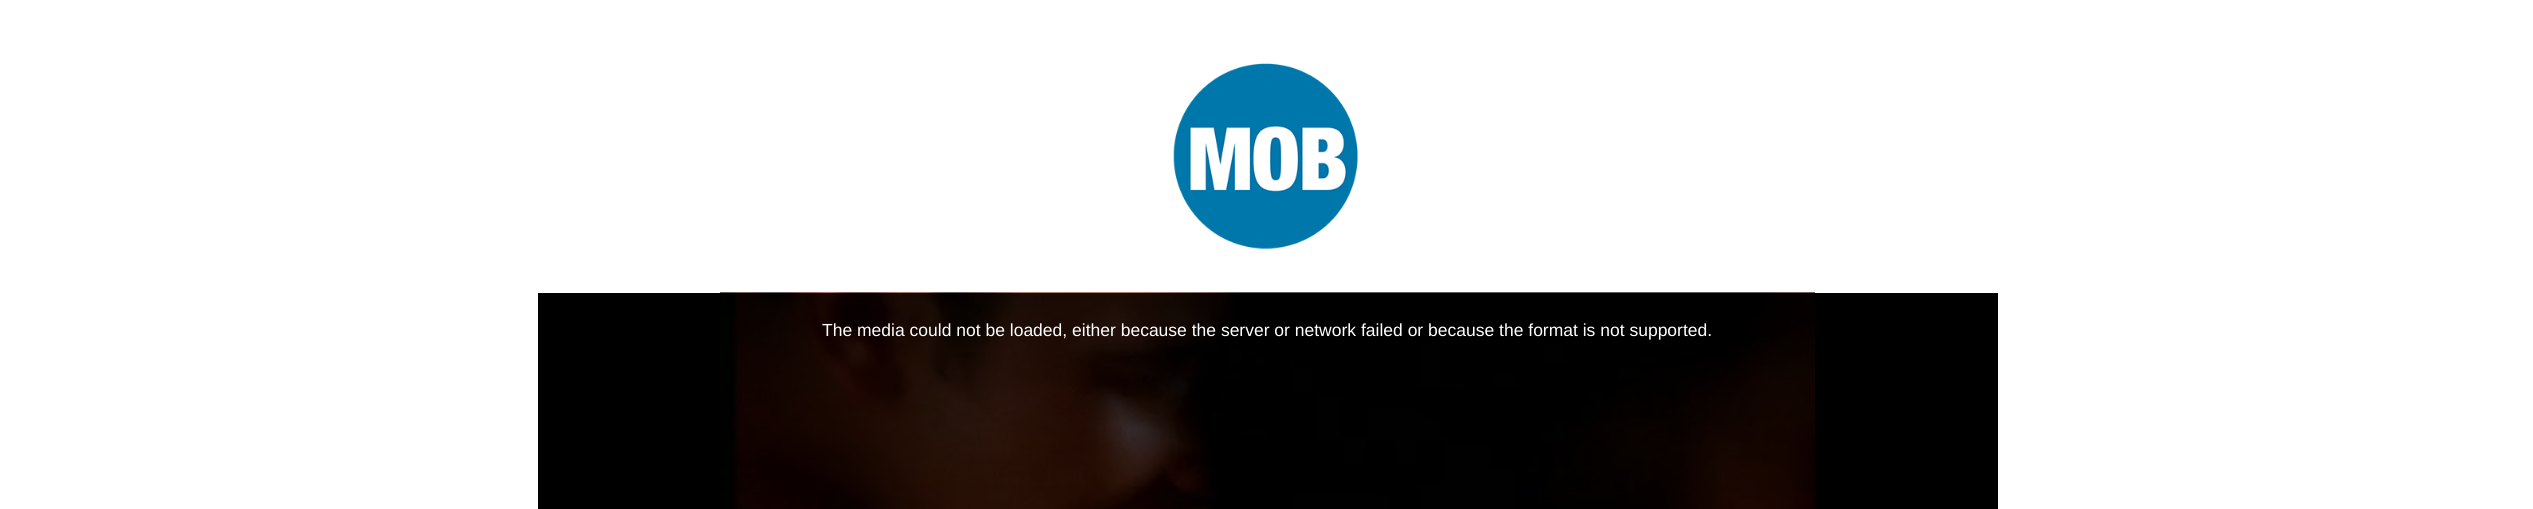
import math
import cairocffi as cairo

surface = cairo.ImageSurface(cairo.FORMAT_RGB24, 2533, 509)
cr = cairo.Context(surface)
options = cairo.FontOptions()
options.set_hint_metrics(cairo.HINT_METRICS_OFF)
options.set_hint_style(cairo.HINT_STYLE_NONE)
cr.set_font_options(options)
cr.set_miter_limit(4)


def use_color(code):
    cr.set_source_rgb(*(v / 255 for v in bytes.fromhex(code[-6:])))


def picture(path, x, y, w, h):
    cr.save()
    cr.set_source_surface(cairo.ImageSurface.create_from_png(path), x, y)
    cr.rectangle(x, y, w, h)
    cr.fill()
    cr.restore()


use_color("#ffffff")
cr.paint()
picture("img1.png", 1173, 63, 185, 187)
use_color("#000000")
cr.rectangle(538, 293, 1460, 216)
cr.fill()
picture("img3.png", 720, 292, 1095, 1)
picture("img2.png", 720, 292, 1095, 217)
gradient = cairo.LinearGradient(1268, 292, 1268, 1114)
gradient.add_color_stop_rgba(0, 0, 0, 0, 0.8)
gradient.add_color_stop_rgba(1, 0, 0, 0, 0)
cr.set_source(gradient)
cr.rectangle(730, 293, 1085, 216)
cr.fill()
cr.select_font_face("Liberation Sans")
cr.set_font_size(17.5)
use_color("#ffffff")
cr.move_to(822, 336)
cr.show_text("The media could not be loaded, either because the server or network failed or because the format is not supported.")
surface.write_to_png("result.png")
